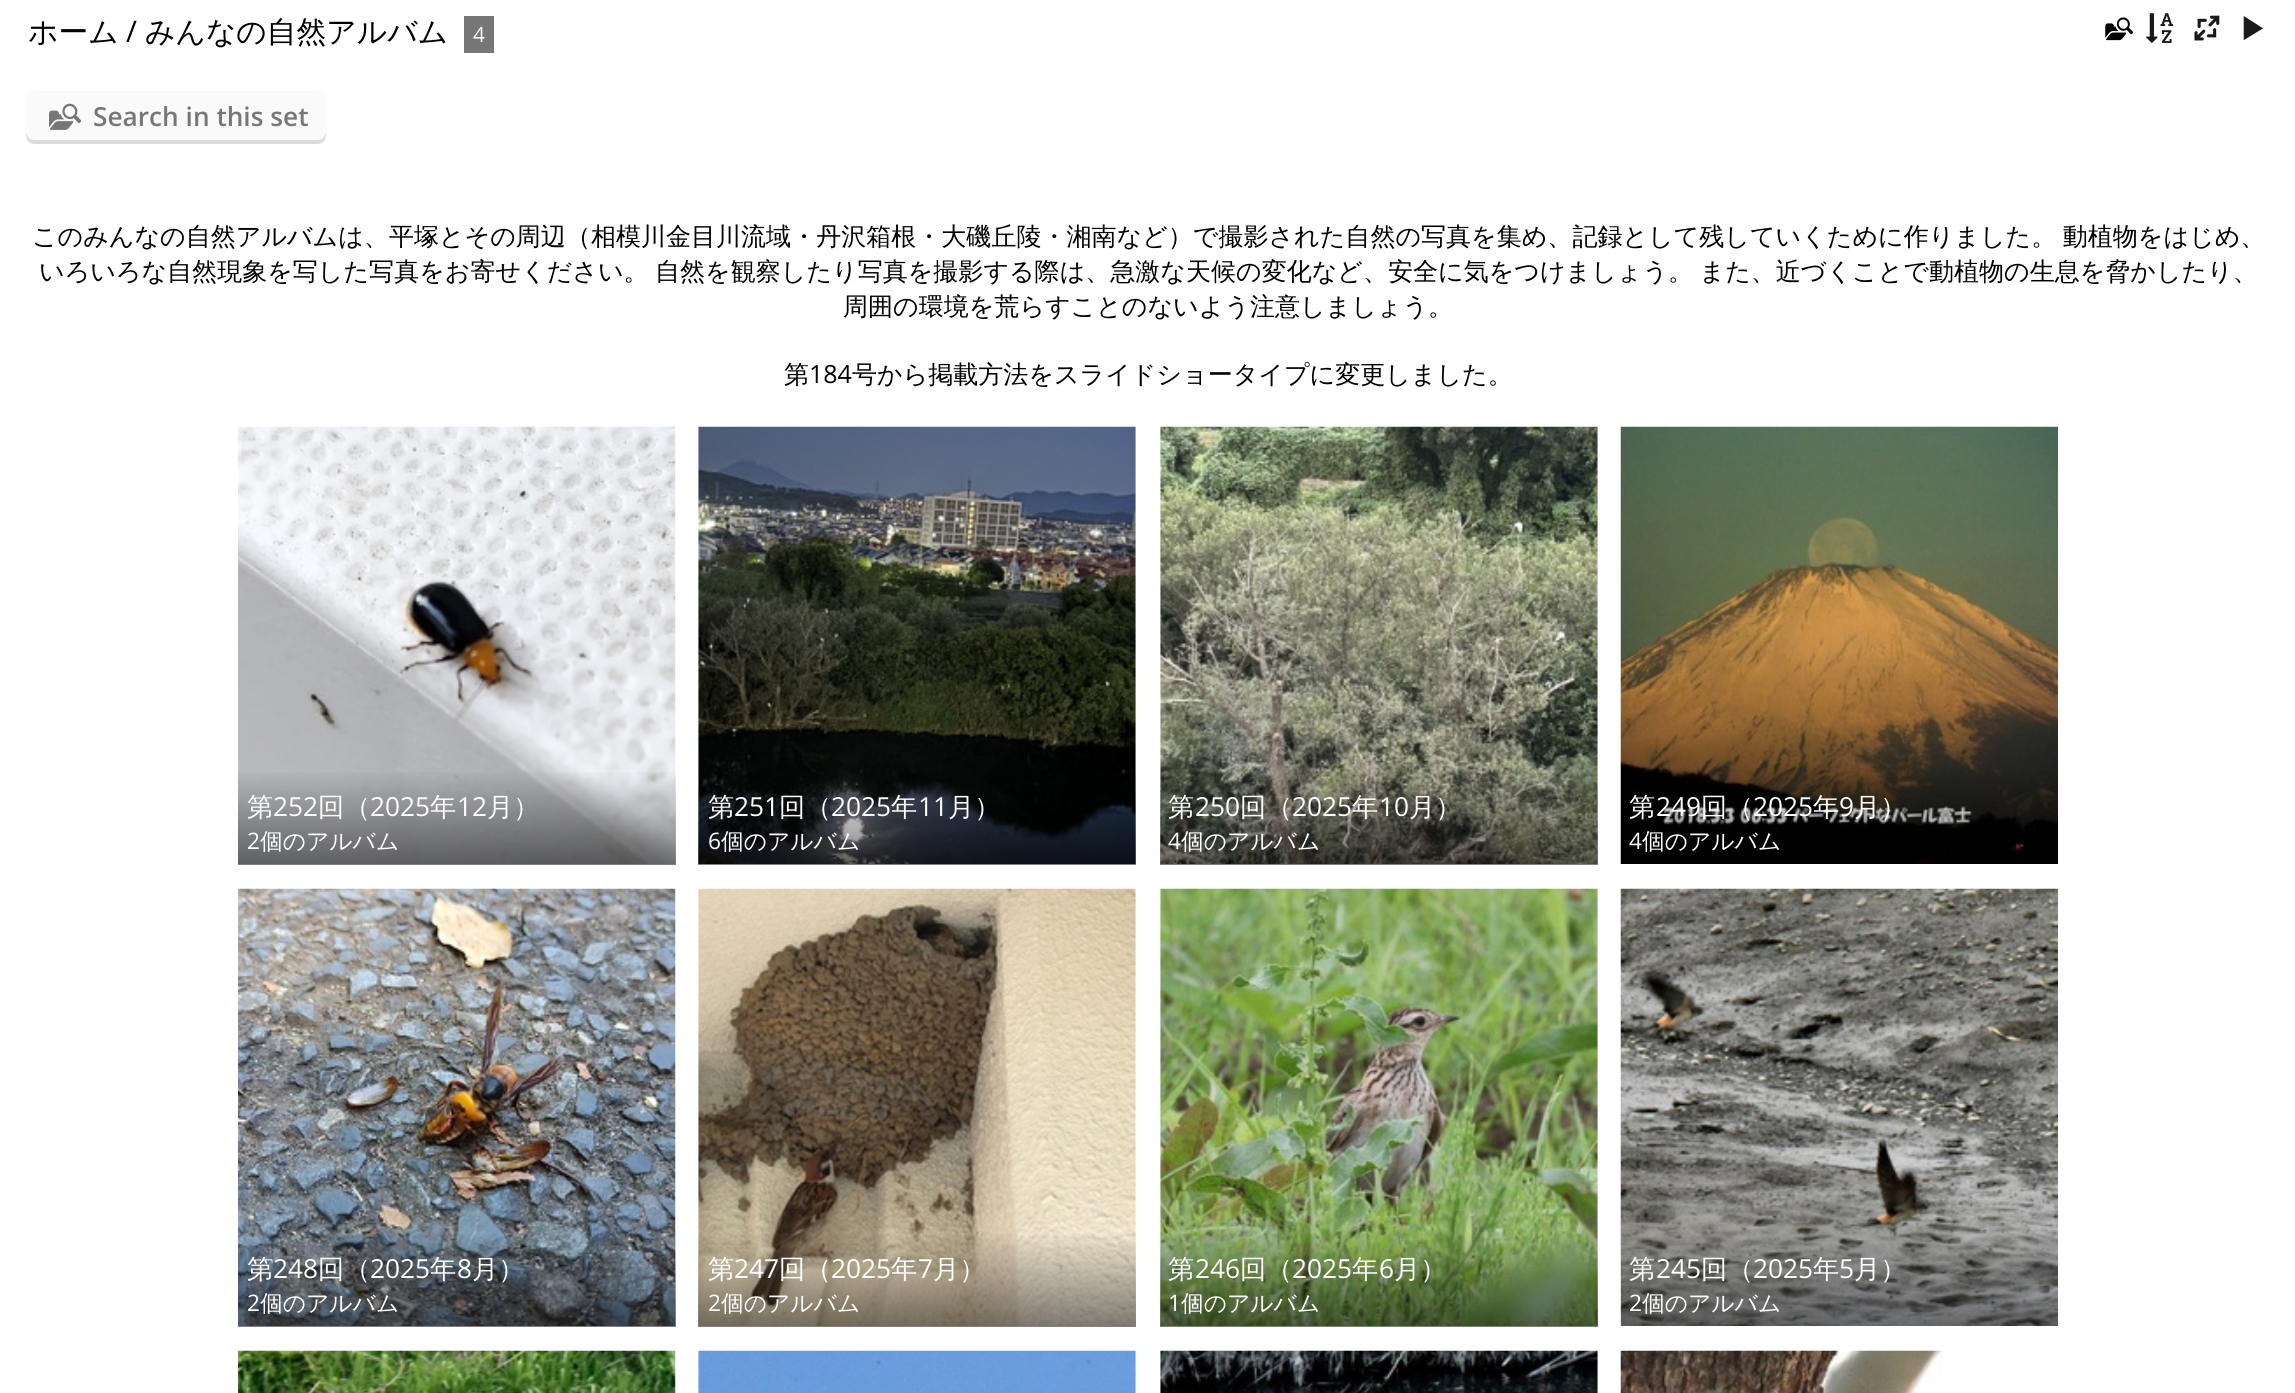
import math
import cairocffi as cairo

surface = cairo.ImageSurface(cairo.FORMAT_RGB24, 2295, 1393)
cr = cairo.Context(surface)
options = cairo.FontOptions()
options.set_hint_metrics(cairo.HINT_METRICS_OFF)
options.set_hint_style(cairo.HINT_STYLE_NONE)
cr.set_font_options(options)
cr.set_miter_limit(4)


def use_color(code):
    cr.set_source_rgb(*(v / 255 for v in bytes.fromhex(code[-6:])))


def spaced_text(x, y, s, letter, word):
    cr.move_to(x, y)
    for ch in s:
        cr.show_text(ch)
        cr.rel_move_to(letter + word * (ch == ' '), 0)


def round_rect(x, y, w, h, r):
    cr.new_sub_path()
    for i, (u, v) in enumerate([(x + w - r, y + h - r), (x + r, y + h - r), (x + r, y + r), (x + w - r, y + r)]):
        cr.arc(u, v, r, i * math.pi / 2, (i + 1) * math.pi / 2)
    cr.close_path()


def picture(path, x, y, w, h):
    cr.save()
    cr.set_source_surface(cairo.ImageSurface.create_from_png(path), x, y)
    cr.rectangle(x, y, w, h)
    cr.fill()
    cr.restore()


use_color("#ffffff")
cr.paint()
cr.select_font_face("WenQuanYi Zen Hei Medium")
cr.set_font_size(29.75)
use_color("#000000")
cr.move_to(28, 42)
cr.show_text("ホーム")
cr.select_font_face("Open Sans")
cr.move_to(126, 42)
cr.show_text("/")
cr.select_font_face("WenQuanYi Zen Hei Medium")
cr.move_to(145, 42)
cr.show_text("みんなの自然アルバム")
use_color("#777777")
cr.rectangle(464, 16, 30, 37)
cr.fill()
cr.select_font_face("Open Sans")
cr.set_font_size(21)
use_color("#ffffff")
cr.move_to(473, 42)
cr.show_text("4")
picture("img1.png", 2105, 17, 29, 24)
picture("img2.png", 2146, 13, 28, 30)
picture("img3.png", 2194, 15, 26, 26)
cr.select_font_face("WenQuanYi Zen Hei Medium")
cr.set_font_size(29.75)
use_color("#1a1a1a")
cr.move_to(2239, 39)
cr.show_text("▶")
use_color("#dbdbdb")
cr.new_path()
cr.move_to(26, 102)
cr.line_to(26, 125)
cr.curve_to(26, 132, 24, 144, 35, 144)
cr.line_to(317, 144)
cr.curve_to(328, 144, 326, 132, 326, 125)
cr.line_to(326, 101)
cr.line_to(326, 131)
cr.curve_to(326, 136, 322, 140, 317, 140)
cr.line_to(35, 140)
cr.curve_to(30, 140, 26, 136, 26, 131)
cr.close_path()
cr.fill()
use_color("#fafafa")
round_rect(26, 91, 300, 49, 9)
cr.fill()
picture("img4.png", 49, 103, 33, 27)
cr.select_font_face("Open Sans SemiBold")
cr.set_font_size(26.25)
use_color("#777777")
cr.move_to(93, 126)
cr.show_text("Search in this set")
cr.select_font_face("WenQuanYi Zen Hei Medium")
cr.set_font_size(25.03)
use_color("#000000")
spaced_text(32, 245, "このみんなの自然アルバムは、平塚とその周辺（相模川金目川流域・丹沢箱根・大磯丘陵・湘南など）で撮影された自然の写真を集め、記録として残していくために作りました。 動植物をはじめ、", 0, -1)
spaced_text(39, 280, "いろいろな自然現象を写した写真をお寄せください。 自然を観察したり写真を撮影する際は、急激な天候の変化など、安全に気をつけましょう。 また、近づくことで動植物の生息を脅かしたり、", 0, -1)
cr.move_to(843, 315)
cr.show_text("周囲の環境を荒らすことのないよう注意しましょう。")
cr.move_to(784, 383)
cr.show_text("第")
cr.select_font_face("Open Sans")
cr.move_to(809, 383)
cr.show_text("184")
cr.select_font_face("WenQuanYi Zen Hei Medium")
cr.move_to(852, 383)
cr.show_text("号から掲載方法をスライドショータイプに変更しました。")
picture("img5.png", 238, 426, 438, 438)
gradient = cairo.LinearGradient(457, 770, 457, 866)
gradient.add_color_stop_rgba(0, 0, 0, 0, 0.01)
gradient.add_color_stop_rgba(1, 0, 0, 0, 0.5)
cr.set_source(gradient)
cr.rectangle(238, 772, 438, 93)
cr.fill()
cr.set_font_size(26.25)
use_color("#ffffff")
cr.move_to(247, 816)
cr.show_text("第")
cr.select_font_face("Open Sans")
cr.move_to(273, 816)
cr.show_text("252")
cr.select_font_face("WenQuanYi Zen Hei Medium")
cr.move_to(318, 816)
cr.show_text("回（")
cr.select_font_face("Open Sans")
cr.move_to(370, 816)
cr.show_text("2025")
cr.select_font_face("WenQuanYi Zen Hei Medium")
cr.move_to(430, 816)
cr.show_text("年")
cr.select_font_face("Open Sans")
cr.move_to(457, 816)
cr.show_text("12")
cr.select_font_face("WenQuanYi Zen Hei Medium")
cr.move_to(487, 816)
cr.show_text("月）")
cr.select_font_face("Open Sans")
cr.set_font_size(22.75)
cr.move_to(247, 849)
cr.show_text("2")
cr.select_font_face("WenQuanYi Zen Hei Medium")
cr.move_to(260, 849)
cr.show_text("個のアルバム")
picture("img6.png", 698, 426, 438, 438)
gradient = cairo.LinearGradient(917, 770, 917, 866)
gradient.add_color_stop_rgba(0, 0, 0, 0, 0.01)
gradient.add_color_stop_rgba(1, 0, 0, 0, 0.5)
cr.set_source(gradient)
cr.rectangle(698, 772, 438, 93)
cr.fill()
cr.set_font_size(26.25)
use_color("#ffffff")
cr.move_to(708, 816)
cr.show_text("第")
cr.select_font_face("Open Sans")
cr.move_to(734, 816)
cr.show_text("251")
cr.select_font_face("WenQuanYi Zen Hei Medium")
cr.move_to(779, 816)
cr.show_text("回（")
cr.select_font_face("Open Sans")
cr.move_to(831, 816)
cr.show_text("2025")
cr.select_font_face("WenQuanYi Zen Hei Medium")
cr.move_to(891, 816)
cr.show_text("年")
cr.select_font_face("Open Sans")
cr.move_to(918, 816)
cr.show_text("11")
cr.select_font_face("WenQuanYi Zen Hei Medium")
cr.move_to(948, 816)
cr.show_text("月）")
cr.select_font_face("Open Sans")
cr.set_font_size(22.75)
cr.move_to(708, 849)
cr.show_text("6")
cr.select_font_face("WenQuanYi Zen Hei Medium")
cr.move_to(721, 849)
cr.show_text("個のアルバム")
picture("img7.png", 1160, 426, 438, 438)
gradient = cairo.LinearGradient(1379, 770, 1379, 866)
gradient.add_color_stop_rgba(0, 0, 0, 0, 0.01)
gradient.add_color_stop_rgba(1, 0, 0, 0, 0.5)
cr.set_source(gradient)
cr.rectangle(1160, 772, 438, 93)
cr.fill()
cr.set_font_size(26.25)
use_color("#ffffff")
cr.move_to(1168, 816)
cr.show_text("第")
cr.select_font_face("Open Sans")
cr.move_to(1195, 816)
cr.show_text("250")
cr.select_font_face("WenQuanYi Zen Hei Medium")
cr.move_to(1240, 816)
cr.show_text("回（")
cr.select_font_face("Open Sans")
cr.move_to(1292, 816)
cr.show_text("2025")
cr.select_font_face("WenQuanYi Zen Hei Medium")
cr.move_to(1352, 816)
cr.show_text("年")
cr.select_font_face("Open Sans")
cr.move_to(1379, 816)
cr.show_text("10")
cr.select_font_face("WenQuanYi Zen Hei Medium")
cr.move_to(1409, 816)
cr.show_text("月）")
cr.select_font_face("Open Sans")
cr.set_font_size(22.75)
cr.move_to(1168, 849)
cr.show_text("4")
cr.select_font_face("WenQuanYi Zen Hei Medium")
cr.move_to(1181, 849)
cr.show_text("個のアルバム")
picture("img8.png", 1620, 426, 438, 438)
cr.set_font_size(26.25)
cr.move_to(1629, 816)
cr.show_text("第")
cr.select_font_face("Open Sans")
cr.move_to(1656, 816)
cr.show_text("249")
cr.select_font_face("WenQuanYi Zen Hei Medium")
cr.move_to(1701, 816)
cr.show_text("回（")
cr.select_font_face("Open Sans")
cr.move_to(1753, 816)
cr.show_text("2025")
cr.select_font_face("WenQuanYi Zen Hei Medium")
cr.move_to(1813, 816)
cr.show_text("年")
cr.select_font_face("Open Sans")
cr.move_to(1839, 816)
cr.show_text("9")
cr.select_font_face("WenQuanYi Zen Hei Medium")
cr.move_to(1854, 816)
cr.show_text("月）")
cr.select_font_face("Open Sans")
cr.set_font_size(22.75)
cr.move_to(1629, 849)
cr.show_text("4")
cr.select_font_face("WenQuanYi Zen Hei Medium")
cr.move_to(1642, 849)
cr.show_text("個のアルバム")
picture("img9.png", 238, 888, 438, 438)
gradient = cairo.LinearGradient(457, 1232, 457, 1328)
gradient.add_color_stop_rgba(0, 0, 0, 0, 0.01)
gradient.add_color_stop_rgba(1, 0, 0, 0, 0.5)
cr.set_source(gradient)
cr.rectangle(238, 1234, 438, 93)
cr.fill()
cr.set_font_size(26.25)
use_color("#ffffff")
cr.move_to(247, 1278)
cr.show_text("第")
cr.select_font_face("Open Sans")
cr.move_to(273, 1278)
cr.show_text("248")
cr.select_font_face("WenQuanYi Zen Hei Medium")
cr.move_to(318, 1278)
cr.show_text("回（")
cr.select_font_face("Open Sans")
cr.move_to(370, 1278)
cr.show_text("2025")
cr.select_font_face("WenQuanYi Zen Hei Medium")
cr.move_to(430, 1278)
cr.show_text("年")
cr.select_font_face("Open Sans")
cr.move_to(457, 1278)
cr.show_text("8")
cr.select_font_face("WenQuanYi Zen Hei Medium")
cr.move_to(472, 1278)
cr.show_text("月）")
cr.select_font_face("Open Sans")
cr.set_font_size(22.75)
cr.move_to(247, 1311)
cr.show_text("2")
cr.select_font_face("WenQuanYi Zen Hei Medium")
cr.move_to(260, 1311)
cr.show_text("個のアルバム")
picture("img10.png", 698, 888, 438, 438)
gradient = cairo.LinearGradient(917, 1232, 917, 1328)
gradient.add_color_stop_rgba(0, 0, 0, 0, 0.01)
gradient.add_color_stop_rgba(1, 0, 0, 0, 0.5)
cr.set_source(gradient)
cr.rectangle(698, 1234, 438, 93)
cr.fill()
cr.set_font_size(26.25)
use_color("#ffffff")
cr.move_to(708, 1278)
cr.show_text("第")
cr.select_font_face("Open Sans")
cr.move_to(734, 1278)
cr.show_text("247")
cr.select_font_face("WenQuanYi Zen Hei Medium")
cr.move_to(779, 1278)
cr.show_text("回（")
cr.select_font_face("Open Sans")
cr.move_to(831, 1278)
cr.show_text("2025")
cr.select_font_face("WenQuanYi Zen Hei Medium")
cr.move_to(891, 1278)
cr.show_text("年")
cr.select_font_face("Open Sans")
cr.move_to(918, 1278)
cr.show_text("7")
cr.select_font_face("WenQuanYi Zen Hei Medium")
cr.move_to(933, 1278)
cr.show_text("月）")
cr.select_font_face("Open Sans")
cr.set_font_size(22.75)
cr.move_to(708, 1311)
cr.show_text("2")
cr.select_font_face("WenQuanYi Zen Hei Medium")
cr.move_to(721, 1311)
cr.show_text("個のアルバム")
picture("img11.png", 1160, 888, 438, 438)
gradient = cairo.LinearGradient(1379, 1232, 1379, 1328)
gradient.add_color_stop_rgba(0, 0, 0, 0, 0.01)
gradient.add_color_stop_rgba(1, 0, 0, 0, 0.5)
cr.set_source(gradient)
cr.rectangle(1160, 1234, 438, 93)
cr.fill()
cr.set_font_size(26.25)
use_color("#ffffff")
cr.move_to(1168, 1278)
cr.show_text("第")
cr.select_font_face("Open Sans")
cr.move_to(1195, 1278)
cr.show_text("246")
cr.select_font_face("WenQuanYi Zen Hei Medium")
cr.move_to(1240, 1278)
cr.show_text("回（")
cr.select_font_face("Open Sans")
cr.move_to(1292, 1278)
cr.show_text("2025")
cr.select_font_face("WenQuanYi Zen Hei Medium")
cr.move_to(1352, 1278)
cr.show_text("年")
cr.select_font_face("Open Sans")
cr.move_to(1379, 1278)
cr.show_text("6")
cr.select_font_face("WenQuanYi Zen Hei Medium")
cr.move_to(1394, 1278)
cr.show_text("月）")
cr.select_font_face("Open Sans")
cr.set_font_size(22.75)
cr.move_to(1168, 1311)
cr.show_text("1")
cr.select_font_face("WenQuanYi Zen Hei Medium")
cr.move_to(1181, 1311)
cr.show_text("個のアルバム")
picture("img12.png", 1620, 888, 438, 438)
cr.set_font_size(26.25)
cr.move_to(1629, 1278)
cr.show_text("第")
cr.select_font_face("Open Sans")
cr.move_to(1656, 1278)
cr.show_text("245")
cr.select_font_face("WenQuanYi Zen Hei Medium")
cr.move_to(1701, 1278)
cr.show_text("回（")
cr.select_font_face("Open Sans")
cr.move_to(1753, 1278)
cr.show_text("2025")
cr.select_font_face("WenQuanYi Zen Hei Medium")
cr.move_to(1813, 1278)
cr.show_text("年")
cr.select_font_face("Open Sans")
cr.move_to(1839, 1278)
cr.show_text("5")
cr.select_font_face("WenQuanYi Zen Hei Medium")
cr.move_to(1854, 1278)
cr.show_text("月）")
cr.select_font_face("Open Sans")
cr.set_font_size(22.75)
cr.move_to(1629, 1311)
cr.show_text("2")
cr.select_font_face("WenQuanYi Zen Hei Medium")
cr.move_to(1642, 1311)
cr.show_text("個のアルバム")
picture("img13.png", 238, 1350, 438, 43)
picture("img14.png", 698, 1350, 438, 43)
picture("img15.png", 1160, 1350, 438, 43)
picture("img16.png", 1620, 1350, 323, 43)
surface.write_to_png("result.png")
